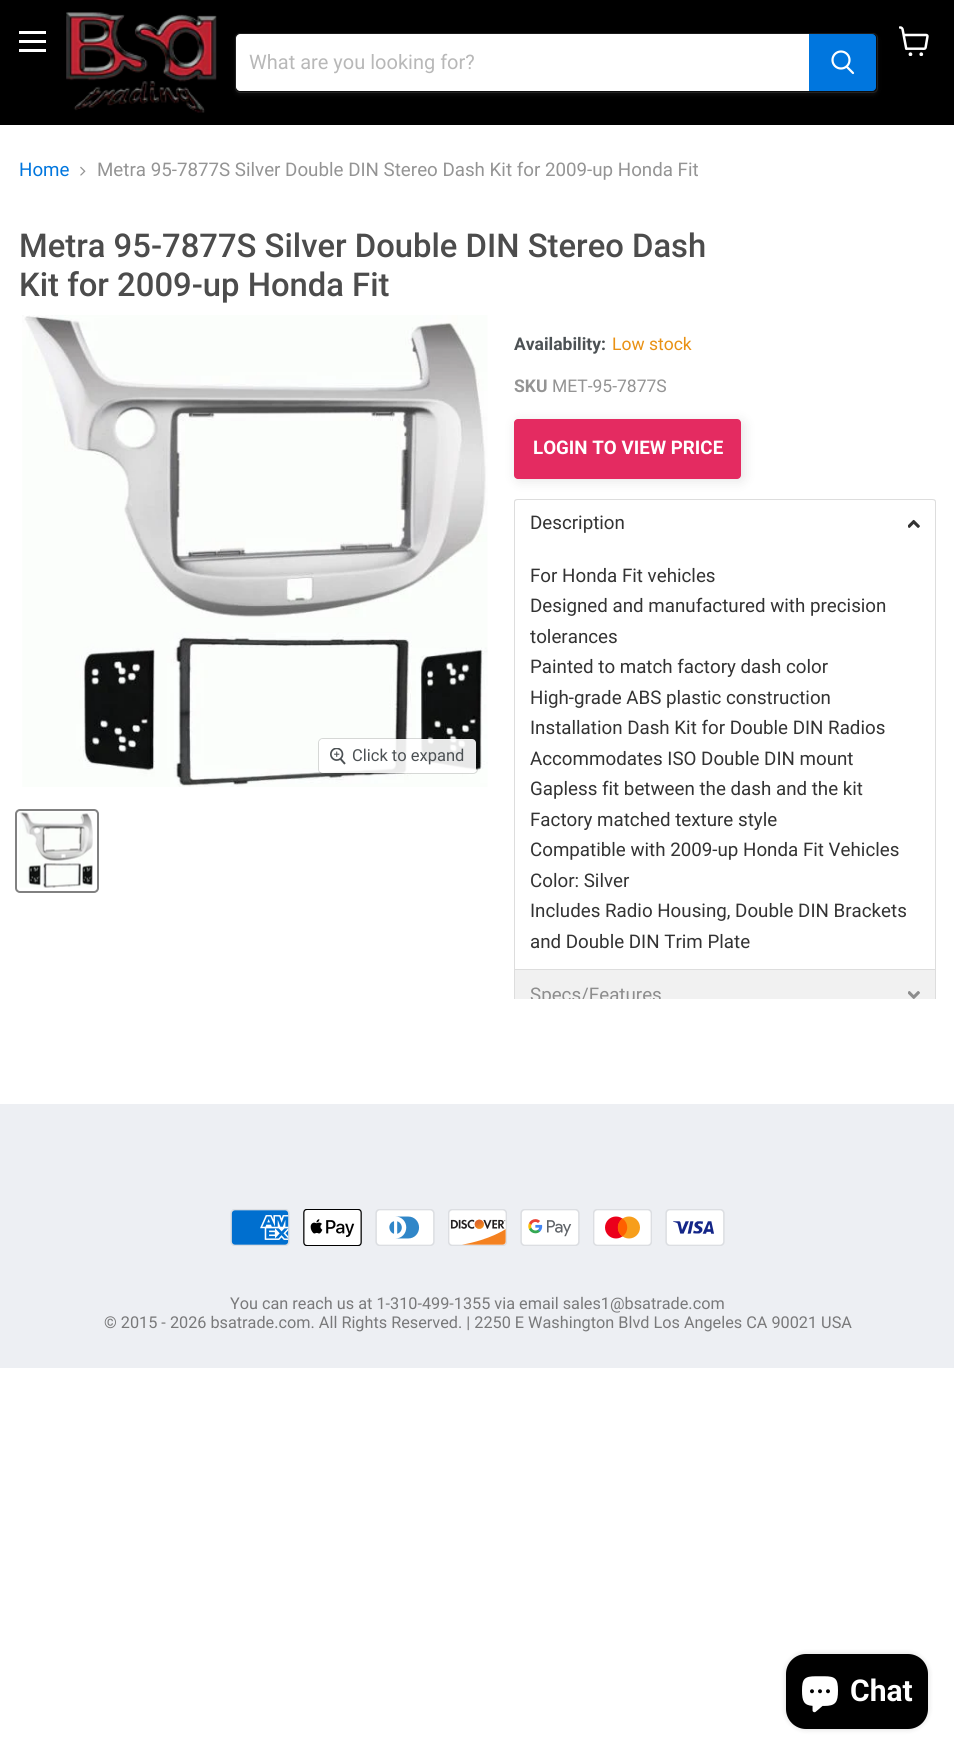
import math
import cairocffi as cairo

surface = cairo.ImageSurface(cairo.FORMAT_RGB24, 954, 1754)
cr = cairo.Context(surface)
options = cairo.FontOptions()
options.set_hint_metrics(cairo.HINT_METRICS_OFF)
options.set_hint_style(cairo.HINT_STYLE_NONE)
cr.set_font_options(options)
cr.set_miter_limit(4)


def use_color(code):
    cr.set_source_rgb(*(v / 255 for v in bytes.fromhex(code[-6:])))


def round_rect(x, y, w, h, r):
    cr.new_sub_path()
    for i, (u, v) in enumerate([(x + w - r, y + h - r), (x + r, y + h - r), (x + r, y + r), (x + w - r, y + r)]):
        cr.arc(u, v, r, i * math.pi / 2, (i + 1) * math.pi / 2)
    cr.close_path()


def shadow(x, y, w, h, r, blur, alpha):
    cr.push_group_with_content(cairo.CONTENT_ALPHA)
    cr.set_operator(cairo.OPERATOR_SOURCE)
    for i in range(15, -16, -2):
        e = blur * i / 6
        if min(w, h) + 2 * e > 0:
            cr.set_source_rgba(0, 0, 0, alpha * math.erfc((i - 1) / 8.5) / 2)
            round_rect(x - e, y - e, w + 2 * e, h + 2 * e, max(0, min(r + e + blur * .6, min(w, h) / 2 + e)))
            cr.fill()
    cr.mask(cr.pop_group())


def picture(path, x, y, w, h):
    cr.save()
    cr.set_source_surface(cairo.ImageSurface.create_from_png(path), x, y)
    cr.rectangle(x, y, w, h)
    cr.fill()
    cr.restore()


use_color("#ffffff")
cr.paint()
use_color("#000000")
cr.rectangle(0, 0, 954, 125)
cr.fill()
use_color("#ffffff")
cr.rectangle(19, 31, 27, 3)
cr.fill()
cr.rectangle(19, 40, 27, 3)
cr.fill()
cr.rectangle(19, 49, 27, 3)
cr.fill()
picture("img1.png", 899, 26, 30, 30)
picture("img2.png", 66, 12, 151, 101)
use_color("#808080")
shadow(235, 35, 643, 60, 5, 2, 0.11)
round_rect(235.5, 33.5, 642, 59, 4.5)
cr.set_source_rgba(0.502, 0.502, 0.502, 0.2)
cr.set_line_width(1)
cr.stroke()
use_color("#ffffff")
cr.new_path()
cr.move_to(240, 34)
cr.line_to(809, 34)
cr.line_to(809, 91)
cr.line_to(240, 91)
cr.curve_to(238, 91, 236, 89, 236, 87)
cr.line_to(236, 38)
cr.curve_to(236, 36, 238, 34, 240, 34)
cr.close_path()
cr.fill()
cr.select_font_face("Roboto")
cr.set_font_size(20)
use_color("#b8b8b8")
cr.move_to(249, 69)
cr.show_text("What are you looking for?")
use_color("#0076de")
cr.new_path()
cr.move_to(809.5, 34.5)
cr.line_to(872, 34.5)
cr.curve_to(874, 34.5, 875.5, 36, 875.5, 38)
cr.line_to(875.5, 87)
cr.curve_to(875.5, 89, 874, 90.5, 872, 90.5)
cr.line_to(809.5, 90.5)
cr.close_path()
cr.fill_preserve()
cr.stroke()
cr.new_path()
cr.move_to(853, 73)
cr.line_to(847, 67)
use_color("#ffffff")
cr.set_line_width(2.2)
cr.set_line_cap(cairo.LINE_CAP_ROUND)
cr.stroke()
cr.arc(841, 60, 8.5, 0, 2 * math.pi)
cr.set_line_cap(cairo.LINE_CAP_BUTT)
cr.stroke()
cr.set_font_size(18.75)
use_color("#0076de")
cr.move_to(19, 176)
cr.show_text("Home")
picture("img3.png", 80, 166, 6, 10)
use_color("#949494")
cr.move_to(97, 176)
cr.show_text("Metra 95-7877S Silver Double DIN Stereo Dash Kit for 2009-up Honda Fit")
cr.select_font_face("Roboto Medium")
cr.set_font_size(32.8)
use_color("#4c4c4c")
cr.move_to(19, 257)
cr.show_text("Metra 95-7877S Silver Double DIN Stereo Dash")
cr.move_to(19, 296)
cr.show_text("Kit for 2009-up Honda Fit")
picture("img4.png", 22, 315, 466, 472)
round_rect(318.5, 738.5, 159, 35, 4.5)
cr.set_source_rgba(0, 0, 0, 0.15)
cr.set_line_width(1)
cr.stroke()
cr.set_source_rgba(1, 1, 1, 0.9)
round_rect(319, 739, 157, 34, 4)
cr.fill()
picture("img5.png", 330, 748, 16, 17)
cr.select_font_face("Roboto")
cr.set_font_size(16.5)
use_color("#4c5154")
cr.move_to(352, 761)
cr.show_text("Click to expand")
round_rect(16, 810, 82, 82, 4)
use_color("#818181")
cr.set_line_width(2)
cr.stroke()
picture("img6.png", 19, 812, 74, 76)
cr.select_font_face("Roboto", cairo.FONT_SLANT_NORMAL, cairo.FONT_WEIGHT_BOLD)
cr.set_font_size(17.5)
use_color("#4c5154")
cr.move_to(514, 350)
cr.show_text("Availability:")
cr.select_font_face("Roboto")
use_color("#e99114")
cr.move_to(612, 350)
cr.show_text("Low stock")
cr.select_font_face("Roboto", cairo.FONT_SLANT_NORMAL, cairo.FONT_WEIGHT_BOLD)
use_color("#949494")
cr.move_to(514, 392)
cr.show_text("SKU")
cr.select_font_face("Roboto")
cr.move_to(552, 392)
cr.show_text("MET-95-7877S")
use_color("#000000")
shadow(516, 421, 228, 60, 4, 6, 0.1)
use_color("#e42b61")
round_rect(514, 419, 227, 60, 4)
cr.fill()
cr.select_font_face("Roboto", cairo.FONT_SLANT_NORMAL, cairo.FONT_WEIGHT_BOLD)
cr.set_font_size(18.75)
use_color("#ffffff")
cr.move_to(533, 454)
cr.show_text("LOGIN TO VIEW PRICE")
use_color("#dddddd")
cr.rectangle(935, 548, 1, 421)
cr.fill()
cr.rectangle(514, 548, 1, 421)
cr.fill()
cr.set_fill_rule(cairo.FILL_RULE_EVEN_ODD)
cr.new_path()
cr.move_to(518, 499)
cr.line_to(932, 499)
cr.curve_to(935, 499, 936, 500, 936, 502)
cr.line_to(936, 549)
cr.line_to(514, 549)
cr.line_to(514, 502)
cr.curve_to(514, 500, 515, 499, 518, 499)
cr.close_path()
cr.move_to(518, 500)
cr.line_to(932, 500)
cr.curve_to(934, 500, 935, 501, 935, 502)
cr.line_to(935, 549)
cr.line_to(515, 549)
cr.line_to(515, 502)
cr.curve_to(515, 501, 516, 500, 518, 500)
cr.close_path()
cr.fill()
cr.select_font_face("Roboto")
use_color("#333333")
cr.move_to(530, 529)
cr.show_text("Description")
picture("img7.png", 908, 519, 12, 9)
cr.move_to(530, 582)
cr.show_text("For Honda Fit vehicles")
cr.move_to(530, 612)
cr.show_text("Designed and manufactured with precision")
cr.move_to(530, 643)
cr.show_text("tolerances")
cr.move_to(530, 673)
cr.show_text("Painted to match factory dash color")
cr.move_to(530, 704)
cr.show_text("High-grade ABS plastic construction")
cr.move_to(530, 734)
cr.show_text("Installation Dash Kit for Double DIN Radios")
cr.move_to(530, 765)
cr.show_text("Accommodates ISO Double DIN mount")
cr.move_to(530, 795)
cr.show_text("Gapless fit between the dash and the kit")
cr.move_to(530, 826)
cr.show_text("Factory matched texture style")
cr.move_to(530, 856)
cr.show_text("Compatible with 2009-up Honda Fit Vehicles")
cr.move_to(530, 887)
cr.show_text("Color: Silver")
cr.move_to(530, 917)
cr.show_text("Includes Radio Housing, Double DIN Brackets")
cr.move_to(530, 948)
cr.show_text("and Double DIN Trim Plate")
use_color("#f1f1f1")
cr.rectangle(515, 970, 420, 29)
cr.fill()
use_color("#dddddd")
cr.rectangle(514, 969, 422, 1)
cr.fill()
cr.rectangle(935, 969, 1, 30)
cr.fill()
cr.rectangle(514, 969, 1, 30)
cr.fill()
cr.save()
cr.set_fill_rule(cairo.FILL_RULE_WINDING)
cr.rectangle(515, 970, 420, 29)
cr.clip()
use_color("#8d8d8d")
cr.move_to(530, 1001)
cr.show_text("Specs/Features")
cr.restore()
picture("img8.png", 908, 991, 12, 8)
use_color("#edeff3")
cr.rectangle(0, 1104, 954, 264)
cr.fill()
picture("img9.png", 230, 1209, 60, 37)
picture("img10.png", 303, 1209, 59, 37)
picture("img11.png", 375, 1209, 60, 37)
picture("img12.png", 448, 1209, 59, 37)
picture("img13.png", 520, 1209, 60, 37)
picture("img14.png", 593, 1209, 59, 37)
picture("img15.png", 665, 1209, 60, 37)
cr.set_font_size(16.25)
use_color("#79797a")
cr.move_to(230, 1309)
cr.show_text("You can reach us at 1-310-499-1355 via email sales1@bsatrade.com")
cr.move_to(104, 1328)
cr.show_text("© 2015 - 2026 bsatrade.com. All Rights Reserved. | 2250 E Washington Blvd Los Angeles CA 90021 USA")
use_color("#000000")
shadow(786, 1654, 142, 75, 20, 3, 0.15)
use_color("#000000")
round_rect(786, 1654, 142, 75, 20)
cr.fill()
picture("img16.png", 802, 1676, 36, 37)
cr.select_font_face("Roboto", cairo.FONT_SLANT_NORMAL, cairo.FONT_WEIGHT_BOLD)
cr.set_font_size(30)
use_color("#ffffff")
cr.move_to(850, 1701)
cr.show_text("Chat")
surface.write_to_png("result.png")
